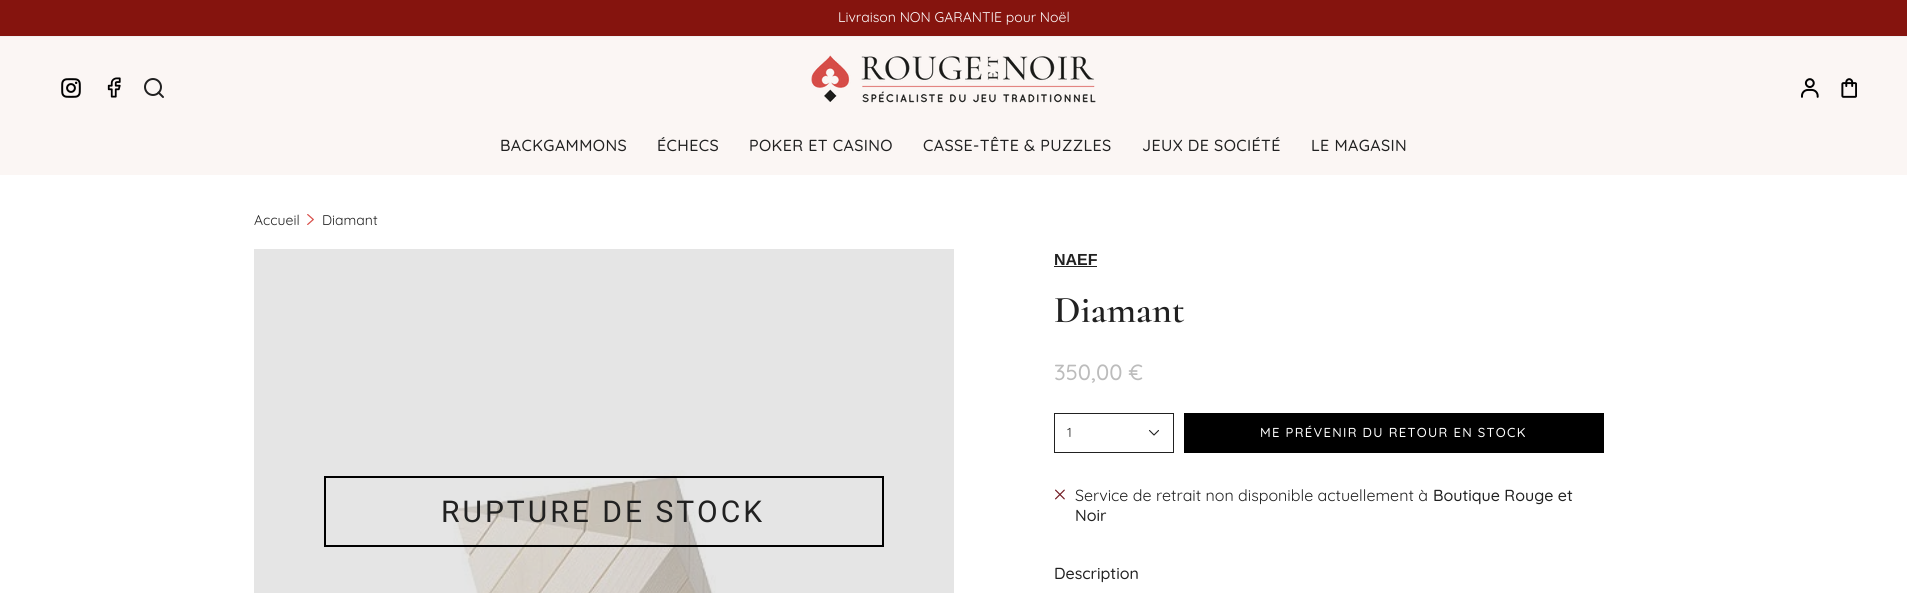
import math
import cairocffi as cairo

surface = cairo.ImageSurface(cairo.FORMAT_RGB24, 1907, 593)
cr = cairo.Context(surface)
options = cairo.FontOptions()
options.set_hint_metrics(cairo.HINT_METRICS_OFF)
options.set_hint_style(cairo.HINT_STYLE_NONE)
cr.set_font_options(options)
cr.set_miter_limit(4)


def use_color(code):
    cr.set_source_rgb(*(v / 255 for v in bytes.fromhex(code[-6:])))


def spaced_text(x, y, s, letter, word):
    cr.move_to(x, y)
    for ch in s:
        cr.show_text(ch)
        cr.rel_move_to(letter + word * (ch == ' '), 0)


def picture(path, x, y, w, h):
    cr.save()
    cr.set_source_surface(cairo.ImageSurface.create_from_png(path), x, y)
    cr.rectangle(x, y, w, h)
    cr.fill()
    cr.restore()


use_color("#ffffff")
cr.paint()
use_color("#85140e")
cr.rectangle(0, 0, 1907, 36)
cr.fill()
use_color("#f0f0f0")
cr.rectangle(0, 36, 1907, 1)
cr.fill()
cr.select_font_face("Quicksand")
cr.set_font_size(14)
use_color("#ffffff")
cr.move_to(838, 22)
cr.show_text("Livraison NON GARANTIE pour Noël")
use_color("#fbf6f4")
cr.rectangle(0, 37, 1907, 138)
cr.fill()
picture("img1.png", 61, 78, 20, 20)
picture("img2.png", 107, 77, 14, 21)
cr.arc(153, 87, 8, 0, 2 * math.pi)
use_color("#212121")
cr.stroke()
cr.new_path()
cr.move_to(163, 97)
cr.line_to(158.5, 92.5)
cr.set_line_cap(cairo.LINE_CAP_ROUND)
cr.set_line_join(cairo.LINE_JOIN_ROUND)
cr.stroke()
picture("img3.png", 811, 55, 285, 48)
picture("img4.png", 1801, 78, 18, 20)
picture("img5.png", 1841, 78, 16, 20)
cr.select_font_face("Quicksand Medium")
cr.set_font_size(16)
spaced_text(500, 151, "BACKGAMMONS", 0.4, 0)
spaced_text(657, 151, "ÉCHECS", 0.4, 0)
spaced_text(749, 151, "POKER ET CASINO", 0.4, 0)
spaced_text(923, 151, "CASSE-TÊTE & PUZZLES", 0.4, 0)
spaced_text(1142, 151, "JEUX DE SOCIÉTÉ", 0.4, 0)
spaced_text(1311, 151, "LE MAGASIN", 0.4, 0)
cr.select_font_face("Quicksand")
cr.set_font_size(14)
cr.move_to(254, 225)
cr.show_text("Accueil")
picture("img6.png", 307, 214, 7, 11)
cr.move_to(322, 225)
cr.show_text("Diamant")
use_color("#e5e5e5")
cr.rectangle(254, 249, 700, 344)
cr.fill()
picture("img7.png", 453, 470, 263, 123)
cr.rectangle(325, 477, 558, 69)
use_color("#000000")
cr.set_line_cap(cairo.LINE_CAP_BUTT)
cr.set_line_join(cairo.LINE_JOIN_MITER)
cr.stroke()
cr.select_font_face("Roboto")
cr.set_font_size(30)
use_color("#212121")
spaced_text(441, 522, "RUPTURE DE STOCK", 3, 0)
cr.select_font_face("Liberation Sans", cairo.FONT_SLANT_NORMAL, cairo.FONT_WEIGHT_BOLD)
cr.set_font_size(16)
cr.move_to(1054, 265)
cr.show_text("NAEF")
cr.rectangle(1054, 266, 43, 1)
cr.fill()
cr.select_font_face("Cormorant SemiBold")
cr.set_font_size(38)
cr.move_to(1054, 322)
cr.show_text("Diamant")
cr.select_font_face("Quicksand Medium")
cr.set_font_size(22)
use_color("#bcbcbc")
cr.move_to(1054, 380)
cr.show_text("350,00 €")
cr.rectangle(1054.5, 413.5, 119, 39)
use_color("#212121")
cr.set_line_width(1)
cr.stroke()
cr.select_font_face("Quicksand")
cr.set_font_size(13)
cr.move_to(1067, 437)
cr.show_text("1")
cr.new_path()
cr.move_to(1149.5, 430.5)
cr.line_to(1154, 435)
cr.line_to(1158.5, 430.5)
cr.set_line_width(1.1)
cr.set_line_cap(cairo.LINE_CAP_ROUND)
cr.set_line_join(cairo.LINE_JOIN_ROUND)
cr.stroke()
use_color("#000000")
cr.rectangle(1184, 413, 420, 40)
cr.fill()
cr.select_font_face("Quicksand Medium")
use_color("#ffffff")
spaced_text(1260, 437, "ME PRÉVENIR DU RETOUR EN STOCK", 1.3, 0)
picture("img8.png", 1055, 489, 10, 11)
cr.select_font_face("Quicksand")
cr.set_font_size(16)
use_color("#212121")
cr.move_to(1075, 501)
cr.show_text("Service de retrait non disponible actuellement à")
cr.select_font_face("Quicksand Medium")
cr.move_to(1433, 501)
cr.show_text("Boutique Rouge et")
cr.move_to(1075, 521)
cr.show_text("Noir")
cr.move_to(1054, 579)
cr.show_text("Description")
surface.write_to_png("result.png")
